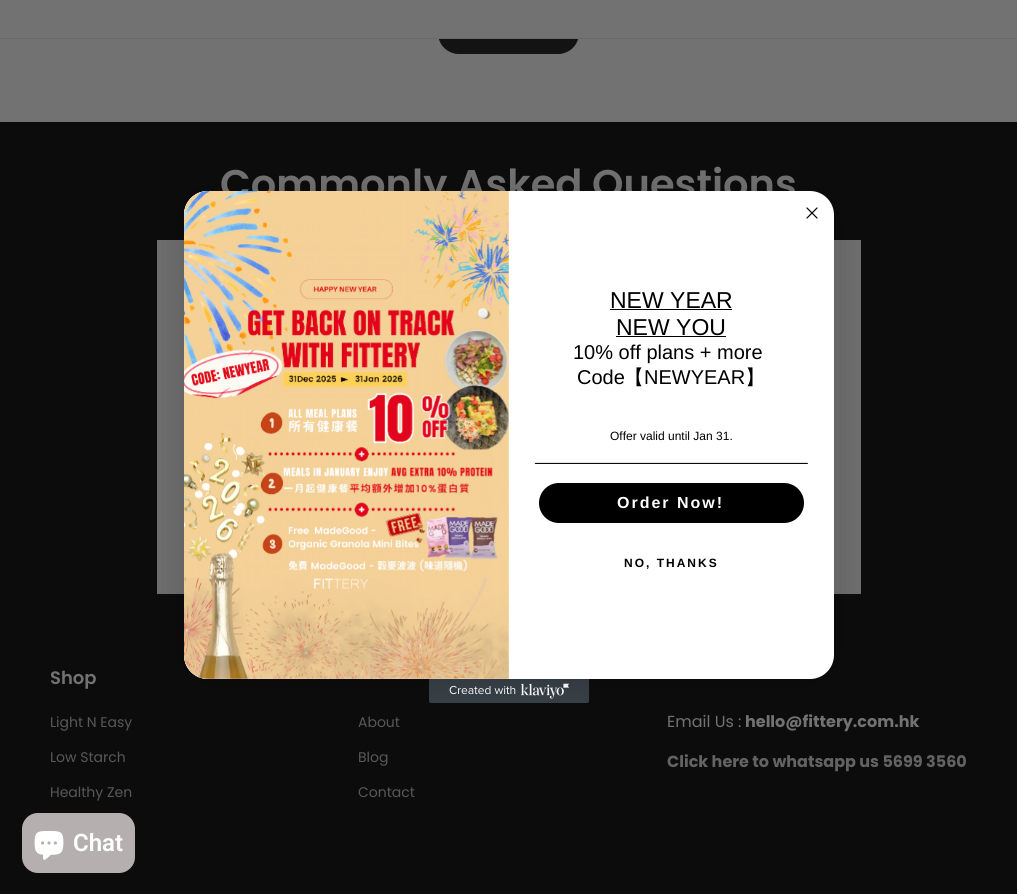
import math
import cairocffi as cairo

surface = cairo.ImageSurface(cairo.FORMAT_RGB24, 1017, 894)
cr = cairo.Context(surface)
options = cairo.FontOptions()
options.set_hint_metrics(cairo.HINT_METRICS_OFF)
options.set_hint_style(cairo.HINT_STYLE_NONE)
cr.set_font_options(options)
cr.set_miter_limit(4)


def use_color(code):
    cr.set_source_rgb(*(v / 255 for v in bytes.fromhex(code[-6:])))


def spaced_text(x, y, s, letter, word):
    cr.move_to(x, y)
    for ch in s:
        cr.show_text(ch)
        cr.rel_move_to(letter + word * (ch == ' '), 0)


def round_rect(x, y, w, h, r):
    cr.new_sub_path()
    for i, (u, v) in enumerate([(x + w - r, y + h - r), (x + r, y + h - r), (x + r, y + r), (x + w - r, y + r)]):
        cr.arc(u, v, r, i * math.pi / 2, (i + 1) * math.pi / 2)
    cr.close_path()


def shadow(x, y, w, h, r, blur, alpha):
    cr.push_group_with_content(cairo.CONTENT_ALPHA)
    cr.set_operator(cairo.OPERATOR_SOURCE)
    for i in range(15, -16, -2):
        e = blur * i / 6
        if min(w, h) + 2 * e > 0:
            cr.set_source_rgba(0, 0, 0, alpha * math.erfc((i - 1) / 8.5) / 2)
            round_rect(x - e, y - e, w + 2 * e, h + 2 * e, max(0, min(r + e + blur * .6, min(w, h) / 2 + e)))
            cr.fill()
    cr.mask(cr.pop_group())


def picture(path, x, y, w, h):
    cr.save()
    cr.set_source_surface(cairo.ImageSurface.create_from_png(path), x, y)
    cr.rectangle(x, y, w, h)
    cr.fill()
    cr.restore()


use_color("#727272")
cr.paint()
use_color("#131313")
round_rect(438.5, 7.5, 140, 46, 20.5)
cr.fill_preserve()
cr.set_line_width(1)
cr.stroke()
use_color("#727272")
cr.rectangle(438, 7, 141, 31)
cr.fill()
use_color("#6a6a6a")
cr.rectangle(0, 38, 1017, 1)
cr.fill()
use_color("#0c0c0c")
cr.rectangle(0, 122, 1017, 772)
cr.fill()
cr.select_font_face("Poppins SemiBold")
cr.set_font_size(40)
use_color("#727272")
cr.move_to(220, 198)
cr.show_text("Commonly Asked Questions")
use_color("#6d6d6d")
cr.rectangle(157, 240, 704, 354)
cr.fill()
picture("img3.png", 429, 679, 160, 24)
use_color("#000000")
shadow(184, 191, 650, 488, 24, 15, 0.15)
use_color("#ffffff")
round_rect(184, 191, 650, 488, 24)
cr.fill()
cr.new_path()
cr.move_to(807, 208)
cr.line_to(817, 218)
cr.move_to(807, 218)
cr.line_to(817, 208)
cr.close_path()
use_color("#000000")
cr.set_line_width(1.2)
cr.set_line_cap(cairo.LINE_CAP_ROUND)
cr.set_line_join(cairo.LINE_JOIN_ROUND)
cr.stroke()
use_color("#ffffff")
cr.new_path()
cr.move_to(208, 191)
cr.line_to(509, 191)
cr.line_to(509, 679)
cr.line_to(208, 679)
cr.curve_to(194.5, 679, 184, 668.5, 184, 655)
cr.line_to(184, 215)
cr.curve_to(184, 201.5, 194.5, 191, 208, 191)
cr.close_path()
cr.fill()
picture("img1.png", 184, 191, 325, 488)
cr.select_font_face("Liberation Sans")
cr.set_font_size(23)
use_color("#000000")
cr.move_to(610, 308)
cr.show_text("NEW YEAR")
cr.rectangle(610, 309, 122, 1)
cr.fill()
cr.move_to(616, 335)
cr.show_text("NEW YOU")
cr.rectangle(616, 336, 110, 1)
cr.fill()
cr.set_font_size(20)
cr.move_to(573, 359)
cr.show_text("10% off plans + more")
cr.move_to(577, 384)
cr.show_text("Code")
cr.select_font_face("WenQuanYi Zen Hei Medium")
cr.move_to(624, 384)
cr.show_text("【")
cr.select_font_face("Liberation Sans")
cr.move_to(644, 384)
cr.show_text("NEWYEAR")
cr.select_font_face("WenQuanYi Zen Hei Medium")
cr.move_to(745, 384)
cr.show_text("】")
cr.select_font_face("Liberation Sans")
cr.set_font_size(12)
cr.move_to(610, 440)
cr.show_text("Offer valid until Jan 31.")
picture("img2.png", 534, 462, 274, 2)
round_rect(539, 483, 265, 40, 20)
cr.fill()
cr.select_font_face("Liberation Sans", cairo.FONT_SLANT_NORMAL, cairo.FONT_WEIGHT_BOLD)
cr.set_font_size(16)
use_color("#ffffff")
spaced_text(617, 508, "Order Now!", 2, 0)
cr.set_font_size(12)
use_color("#000000")
spaced_text(624, 567, "NO, THANKS", 2, 0)
cr.select_font_face("Poppins SemiBold")
cr.set_font_size(18)
use_color("#727272")
cr.move_to(50, 684)
cr.show_text("Shop")
cr.select_font_face("Poppins")
cr.set_font_size(14)
use_color("#585858")
cr.move_to(50, 727)
cr.show_text("Light N Easy")
cr.move_to(50, 762)
cr.show_text("Low Starch")
cr.move_to(50, 797)
cr.show_text("Healthy Zen")
cr.move_to(358, 727)
cr.show_text("About")
cr.move_to(358, 762)
cr.show_text("Blog")
cr.move_to(358, 797)
cr.show_text("Contact")
cr.set_font_size(16)
use_color("#727272")
cr.move_to(667, 727)
cr.show_text("Email Us :")
cr.select_font_face("Poppins", cairo.FONT_SLANT_NORMAL, cairo.FONT_WEIGHT_BOLD)
cr.move_to(745, 727)
cr.show_text("hello@fittery.com.hk")
use_color("#636363")
cr.move_to(667, 767)
cr.show_text("Click here to whatsapp us 5699 3560")
use_color("#b6afaf")
round_rect(22, 813, 113, 60, 16)
cr.fill()
picture("img4.png", 34, 831, 30, 29)
cr.select_font_face("Roboto SemiBold")
cr.set_font_size(24)
use_color("#ffffff")
cr.move_to(73, 851)
cr.show_text("Chat")
surface.write_to_png("result.png")
